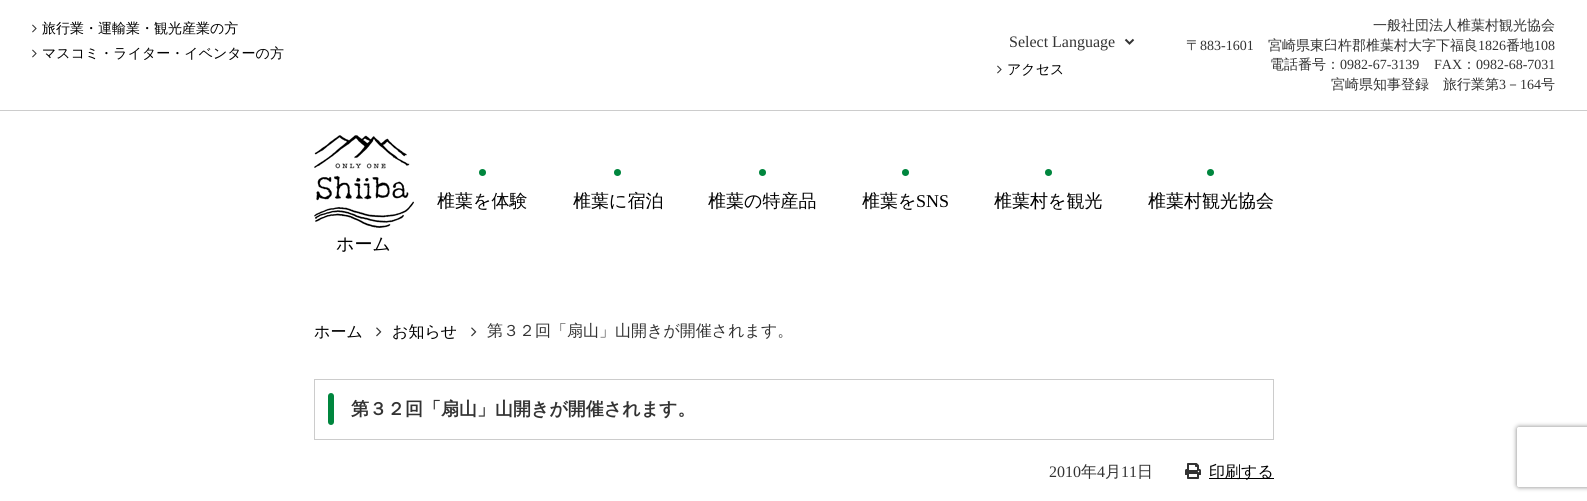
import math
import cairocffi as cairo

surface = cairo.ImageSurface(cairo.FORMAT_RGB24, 1587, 501)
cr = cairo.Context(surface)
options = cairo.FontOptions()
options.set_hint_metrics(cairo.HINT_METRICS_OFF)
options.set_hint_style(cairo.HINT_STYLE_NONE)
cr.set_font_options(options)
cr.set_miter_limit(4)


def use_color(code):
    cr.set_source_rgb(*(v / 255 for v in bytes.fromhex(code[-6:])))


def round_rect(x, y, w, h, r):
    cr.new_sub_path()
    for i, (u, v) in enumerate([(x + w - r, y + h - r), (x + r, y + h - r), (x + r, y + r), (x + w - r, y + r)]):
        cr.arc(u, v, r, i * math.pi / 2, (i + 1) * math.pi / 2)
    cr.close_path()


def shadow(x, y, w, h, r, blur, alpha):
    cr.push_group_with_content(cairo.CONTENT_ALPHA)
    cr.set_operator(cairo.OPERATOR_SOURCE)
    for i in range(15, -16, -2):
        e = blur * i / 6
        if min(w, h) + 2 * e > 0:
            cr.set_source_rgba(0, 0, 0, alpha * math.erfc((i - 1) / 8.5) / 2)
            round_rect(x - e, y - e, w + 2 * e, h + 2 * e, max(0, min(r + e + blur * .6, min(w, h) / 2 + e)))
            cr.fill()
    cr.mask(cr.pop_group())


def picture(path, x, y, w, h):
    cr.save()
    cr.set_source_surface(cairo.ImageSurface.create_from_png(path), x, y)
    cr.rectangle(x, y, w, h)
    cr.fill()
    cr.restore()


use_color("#ffffff")
cr.paint()
use_color("#cccccc")
cr.rectangle(0, 110, 1587, 1)
cr.fill()
picture("img1.png", 32, 24, 5, 9)
cr.select_font_face("WenQuanYi Zen Hei Medium")
cr.set_font_size(14)
use_color("#000000")
cr.move_to(42, 33)
cr.show_text("旅行業・運輸業・観光産業の方")
picture("img1.png", 32, 49, 5, 9)
cr.move_to(42, 58)
cr.show_text("マスコミ・ライター・イベンターの方")
cr.new_path()
cr.move_to(1125.5, 39.5)
cr.line_to(1129.5, 43.5)
cr.line_to(1133.5, 39.5)
use_color("#333333")
cr.stroke()
cr.select_font_face("Liberation Serif")
cr.set_font_size(16)
cr.move_to(1009, 47)
cr.show_text("Select Language")
picture("img1.png", 997, 65, 5, 9)
cr.select_font_face("WenQuanYi Zen Hei Medium")
cr.set_font_size(14)
use_color("#000000")
cr.move_to(1007, 74)
cr.show_text("アクセス")
use_color("#333333")
cr.move_to(1373, 30)
cr.show_text("一般社団法人椎葉村観光協会")
cr.move_to(1186, 50)
cr.show_text("〒")
cr.select_font_face("Liberation Serif")
cr.move_to(1200, 50)
cr.show_text("883-1601")
cr.select_font_face("WenQuanYi Zen Hei Medium")
cr.move_to(1268, 50)
cr.show_text("宮崎県東臼杵郡椎葉村大字下福良")
cr.select_font_face("Liberation Serif")
cr.move_to(1478, 50)
cr.show_text("1826")
cr.select_font_face("WenQuanYi Zen Hei Medium")
cr.move_to(1506, 50)
cr.show_text("番地")
cr.select_font_face("Liberation Serif")
cr.move_to(1534, 50)
cr.show_text("108")
cr.select_font_face("WenQuanYi Zen Hei Medium")
cr.move_to(1270, 69)
cr.show_text("電話番号：")
cr.select_font_face("Liberation Serif")
cr.move_to(1340, 69)
cr.show_text("0982-67-3139")
cr.move_to(1434, 69)
cr.show_text("FAX")
cr.select_font_face("WenQuanYi Zen Hei Medium")
cr.move_to(1462, 69)
cr.show_text("：")
cr.select_font_face("Liberation Serif")
cr.move_to(1476, 69)
cr.show_text("0982-68-7031")
cr.select_font_face("WenQuanYi Zen Hei Medium")
cr.move_to(1331, 89)
cr.show_text("宮崎県知事登録　旅行業第")
cr.select_font_face("Liberation Serif")
cr.move_to(1499, 89)
cr.show_text("3")
cr.select_font_face("WenQuanYi Zen Hei Medium")
cr.move_to(1506, 89)
cr.show_text("－")
cr.select_font_face("Liberation Serif")
cr.move_to(1520, 89)
cr.show_text("164")
cr.select_font_face("WenQuanYi Zen Hei Medium")
cr.move_to(1541, 89)
cr.show_text("号")
use_color("#00863e")
cr.new_path()
cr.arc(482.5, 172.5, 3.5, 0, 2 * math.pi)
cr.fill()
cr.set_font_size(18)
use_color("#000000")
cr.move_to(437, 207)
cr.show_text("椎葉を体験")
use_color("#00863e")
cr.new_path()
cr.arc(617.5, 172.5, 3.5, 0, 2 * math.pi)
cr.fill()
use_color("#000000")
cr.move_to(573, 207)
cr.show_text("椎葉に宿泊")
use_color("#00863e")
cr.new_path()
cr.arc(762.5, 172.5, 3.5, 0, 2 * math.pi)
cr.fill()
use_color("#000000")
cr.move_to(708, 207)
cr.show_text("椎葉の特産品")
use_color("#00863e")
cr.new_path()
cr.arc(905.5, 172.5, 3.5, 0, 2 * math.pi)
cr.fill()
use_color("#000000")
cr.move_to(862, 207)
cr.show_text("椎葉を")
cr.select_font_face("Liberation Serif")
cr.move_to(916, 207)
cr.show_text("SNS")
use_color("#00863e")
cr.new_path()
cr.arc(1048.5, 172.5, 3.5, 0, 2 * math.pi)
cr.fill()
cr.select_font_face("WenQuanYi Zen Hei Medium")
use_color("#000000")
cr.move_to(994, 207)
cr.show_text("椎葉村を観光")
use_color("#00863e")
cr.new_path()
cr.arc(1210.5, 172.5, 3.5, 0, 2 * math.pi)
cr.fill()
use_color("#000000")
cr.move_to(1148, 207)
cr.show_text("椎葉村観光協会")
picture("img2.png", 314, 135, 100, 93)
cr.move_to(336, 250)
cr.show_text("ホーム")
cr.set_font_size(16)
cr.move_to(314, 337)
cr.show_text("ホーム")
picture("img3.png", 376, 327, 6, 10)
cr.move_to(392, 337)
cr.show_text("お知らせ")
picture("img3.png", 471, 327, 6, 10)
use_color("#333333")
cr.move_to(487, 336)
cr.show_text("第３２回「扇山」山開きが開催されます。")
cr.rectangle(314.5, 379.5, 959, 60)
use_color("#cccccc")
cr.set_line_width(1)
cr.stroke()
use_color("#00863e")
round_rect(328, 393, 6, 32, 3)
cr.fill()
cr.select_font_face("WenQuanYi Zen Hei", cairo.FONT_SLANT_NORMAL, cairo.FONT_WEIGHT_BOLD)
cr.set_font_size(18)
use_color("#333333")
cr.move_to(351, 415)
cr.show_text("第３２回「扇山」山開きが開催されます。")
cr.select_font_face("Liberation Serif")
cr.set_font_size(16)
cr.move_to(1049, 477)
cr.show_text("2010")
cr.select_font_face("WenQuanYi Zen Hei Medium")
cr.move_to(1081, 477)
cr.show_text("年")
cr.select_font_face("Liberation Serif")
cr.move_to(1097, 477)
cr.show_text("4")
cr.select_font_face("WenQuanYi Zen Hei Medium")
cr.move_to(1105, 477)
cr.show_text("月")
cr.select_font_face("Liberation Serif")
cr.move_to(1121, 477)
cr.show_text("11")
cr.select_font_face("WenQuanYi Zen Hei Medium")
cr.move_to(1137, 477)
cr.show_text("日")
picture("img4.png", 1185, 463, 16, 16)
use_color("#000000")
cr.rectangle(1209, 478, 65, 1)
cr.fill()
cr.move_to(1209, 477)
cr.show_text("印刷する")
cr.save()
cr.set_fill_rule(cairo.FILL_RULE_EVEN_ODD)
cr.new_path()
cr.move_to(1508, 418)
cr.line_to(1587, 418)
cr.line_to(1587, 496)
cr.line_to(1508, 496)
cr.close_path()
cr.move_to(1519, 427)
cr.line_to(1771, 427)
cr.curve_to(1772, 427, 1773, 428, 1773, 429)
cr.line_to(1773, 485)
cr.curve_to(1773, 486, 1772, 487, 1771, 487)
cr.line_to(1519, 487)
cr.curve_to(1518, 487, 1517, 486, 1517, 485)
cr.line_to(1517, 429)
cr.curve_to(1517, 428, 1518, 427, 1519, 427)
cr.close_path()
cr.clip()
use_color("#808080")
shadow(1517, 427, 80, 60, 2, 2.5, 1)
cr.restore()
surface.write_to_png("result.png")
